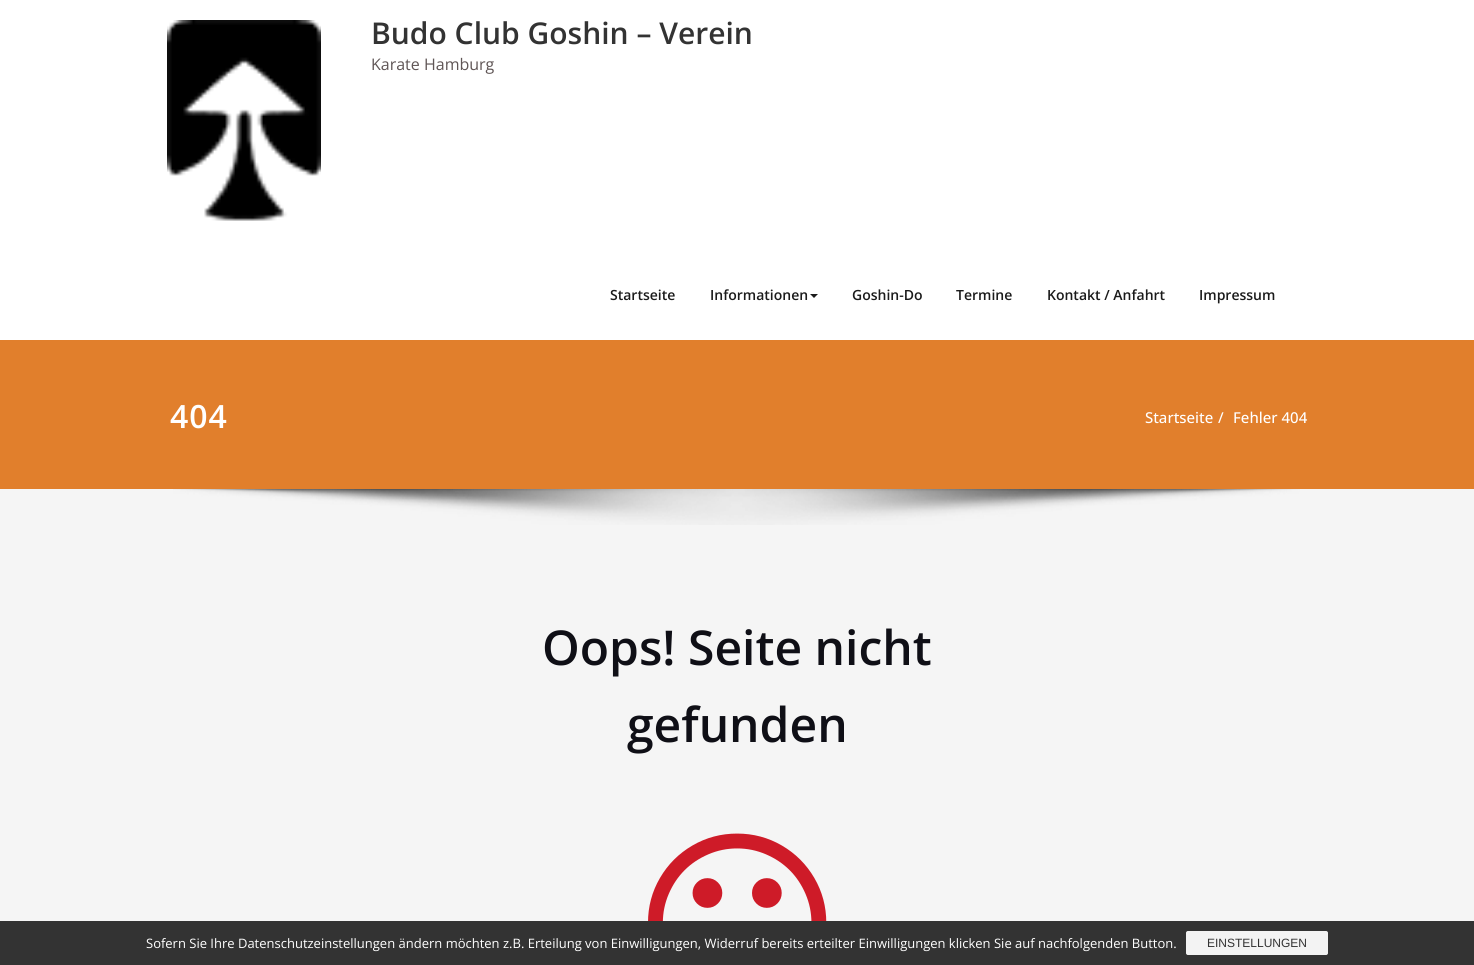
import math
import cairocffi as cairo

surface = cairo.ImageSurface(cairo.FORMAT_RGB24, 1474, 965)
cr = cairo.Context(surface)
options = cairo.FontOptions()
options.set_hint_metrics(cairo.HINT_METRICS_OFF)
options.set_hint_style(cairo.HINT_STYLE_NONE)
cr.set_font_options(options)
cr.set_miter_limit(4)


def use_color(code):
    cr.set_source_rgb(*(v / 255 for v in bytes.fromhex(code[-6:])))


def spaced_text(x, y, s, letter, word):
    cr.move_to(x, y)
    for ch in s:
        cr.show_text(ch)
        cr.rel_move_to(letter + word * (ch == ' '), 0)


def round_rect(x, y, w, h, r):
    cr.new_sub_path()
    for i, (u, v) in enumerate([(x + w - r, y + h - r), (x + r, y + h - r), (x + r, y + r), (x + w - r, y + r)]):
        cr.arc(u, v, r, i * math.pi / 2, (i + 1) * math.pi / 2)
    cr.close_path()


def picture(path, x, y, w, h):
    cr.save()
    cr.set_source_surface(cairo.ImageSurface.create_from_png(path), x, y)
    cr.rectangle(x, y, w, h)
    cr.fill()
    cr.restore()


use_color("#f5f5f5")
cr.paint()
use_color("#ffffff")
cr.rectangle(0, 0, 1474, 340)
cr.fill()
picture("img1.png", 167, 20, 154, 201)
cr.select_font_face("Open Sans SemiBold")
cr.set_font_size(30)
use_color("#333333")
cr.move_to(371, 44)
cr.show_text("Budo Club Goshin – Verein")
cr.select_font_face("Open Sans")
cr.set_font_size(16)
use_color("#5f5555")
cr.move_to(371, 70)
cr.show_text("Karate Hamburg")
cr.select_font_face("Open Sans SemiBold")
cr.set_font_size(14)
use_color("#1b1b1b")
cr.move_to(610, 300)
cr.show_text("Startseite")
cr.move_to(710, 300)
cr.show_text("Informationen")
cr.new_path()
cr.move_to(810, 294)
cr.line_to(818, 294)
cr.line_to(814, 298)
cr.close_path()
cr.fill()
cr.move_to(852, 300)
cr.show_text("Goshin-Do")
cr.move_to(956, 300)
cr.show_text("Termine")
cr.move_to(1047, 300)
cr.show_text("Kontakt / Anfahrt")
cr.move_to(1199, 300)
cr.show_text("Impressum")
use_color("#e17f2c")
cr.rectangle(0, 340, 1474, 149)
cr.fill()
cr.set_font_size(32)
use_color("#ffffff")
spaced_text(170, 428, "404", 1, 0)
cr.select_font_face("Open Sans Medium")
cr.set_font_size(15)
cr.move_to(1145, 423)
cr.show_text("Startseite")
cr.move_to(1218, 423)
cr.show_text("/")
cr.move_to(1233, 423)
cr.show_text("Fehler 404")
picture("img2.png", 173, 489, 1127, 36)
cr.select_font_face("Open Sans SemiBold")
cr.set_font_size(48)
use_color("#0f0f16")
cr.move_to(542, 665)
cr.show_text("Oops! Seite nicht")
cr.move_to(627, 742)
cr.show_text("gefunden")
picture("img3.png", 648, 833, 179, 88)
use_color("#333333")
cr.rectangle(0, 921, 1474, 44)
cr.fill()
cr.select_font_face("Open Sans")
cr.set_font_size(13)
use_color("#ffffff")
cr.move_to(146, 948)
cr.show_text("Sofern Sie Ihre Datenschutzeinstellungen ändern möchten z.B. Erteilung von Einwilligungen, Widerruf bereits erteilter Einwilligungen klicken Sie auf nachfolgenden Button.")
use_color("#f3f3f3")
round_rect(1186.5, 931.5, 141, 23, 1.5)
cr.fill_preserve()
cr.set_line_width(1)
cr.stroke()
cr.select_font_face("Liberation Sans")
cr.set_font_size(12)
use_color("#333333")
cr.move_to(1207, 947)
cr.show_text("EINSTELLUNGEN")
surface.write_to_png("result.png")
